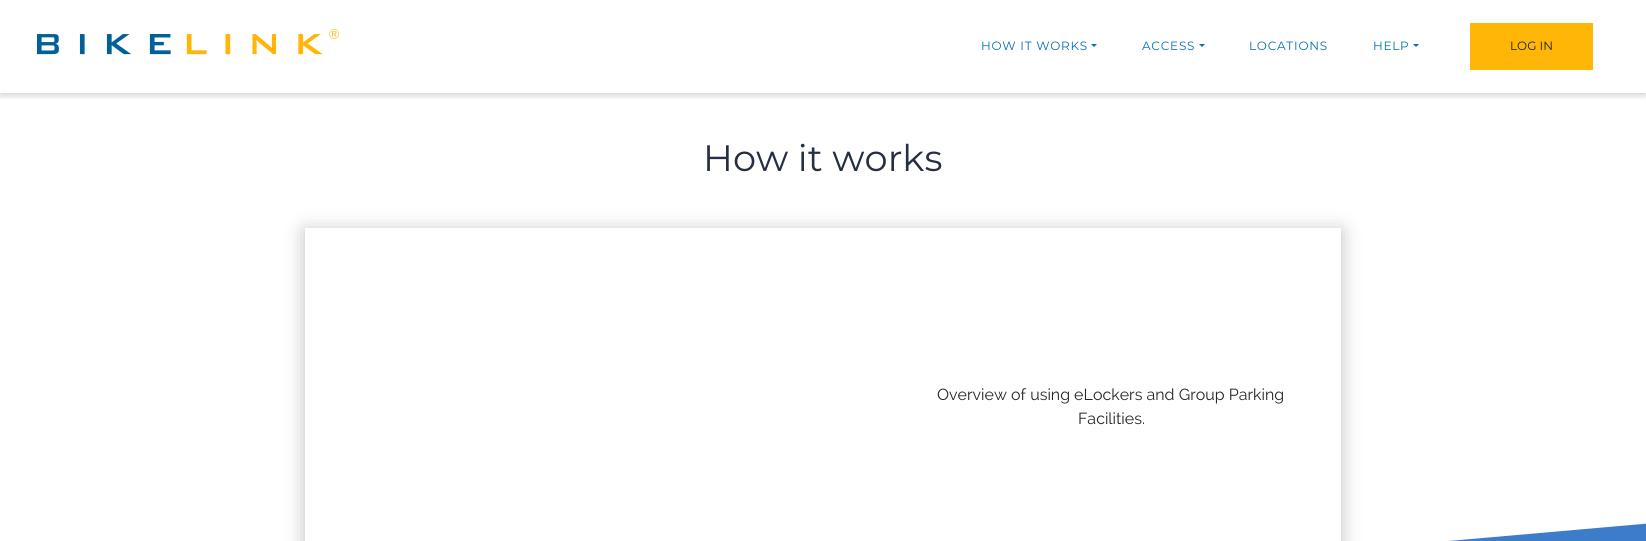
import math
import cairocffi as cairo

surface = cairo.ImageSurface(cairo.FORMAT_RGB24, 1646, 541)
cr = cairo.Context(surface)
options = cairo.FontOptions()
options.set_hint_metrics(cairo.HINT_METRICS_OFF)
options.set_hint_style(cairo.HINT_STYLE_NONE)
cr.set_font_options(options)
cr.set_miter_limit(4)


def use_color(code):
    cr.set_source_rgb(*(v / 255 for v in bytes.fromhex(code[-6:])))


def spaced_text(x, y, s, letter, word):
    cr.move_to(x, y)
    for ch in s:
        cr.show_text(ch)
        cr.rel_move_to(letter + word * (ch == ' '), 0)


def round_rect(x, y, w, h, r):
    cr.new_sub_path()
    for i, (u, v) in enumerate([(x + w - r, y + h - r), (x + r, y + h - r), (x + r, y + r), (x + w - r, y + r)]):
        cr.arc(u, v, r, i * math.pi / 2, (i + 1) * math.pi / 2)
    cr.close_path()


def shadow(x, y, w, h, r, blur, alpha):
    cr.push_group_with_content(cairo.CONTENT_ALPHA)
    cr.set_operator(cairo.OPERATOR_SOURCE)
    for i in range(15, -16, -2):
        e = blur * i / 6
        if min(w, h) + 2 * e > 0:
            cr.set_source_rgba(0, 0, 0, alpha * math.erfc((i - 1) / 8.5) / 2)
            round_rect(x - e, y - e, w + 2 * e, h + 2 * e, max(0, min(r + e + blur * .6, min(w, h) / 2 + e)))
            cr.fill()
    cr.mask(cr.pop_group())


def picture(path, x, y, w, h):
    cr.save()
    cr.set_source_surface(cairo.ImageSurface.create_from_png(path), x, y)
    cr.rectangle(x, y, w, h)
    cr.fill()
    cr.restore()


use_color("#ffffff")
cr.paint()
use_color("#3d7cc9")
cr.rectangle(1448, 523, 198, 18)
cr.fill()
cr.save()
cr.rectangle(0, 93, 1646, 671)
cr.clip()
use_color("#ffffff")
cr.set_fill_rule(cairo.FILL_RULE_EVEN_ODD)
cr.new_path()
cr.move_to(0, -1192)
cr.line_to(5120, -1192)
cr.line_to(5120, 219)
cr.line_to(0, 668)
cr.close_path()
cr.fill()
cr.restore()
cr.save()
cr.rectangle(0, 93, 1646, 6)
cr.clip()
use_color("#000000")
shadow(0, 3, 1646, 93, 0, 3, 0.16)
cr.restore()
picture("img1.png", 37, 29, 302, 26)
cr.select_font_face("Montserrat")
cr.set_font_size(12)
use_color("#006db4")
spaced_text(981, 50, "HOW IT WORKS", 0.75, 0)
cr.new_path()
cr.move_to(1091, 44)
cr.line_to(1097, 44)
cr.line_to(1094, 47)
cr.close_path()
cr.fill()
spaced_text(1142, 50, "ACCESS", 0.75, 0)
cr.new_path()
cr.move_to(1199, 44)
cr.line_to(1205, 44)
cr.line_to(1202, 47)
cr.close_path()
cr.fill()
spaced_text(1249, 50, "LOCATIONS", 0.75, 0)
spaced_text(1373, 50, "HELP", 0.75, 0)
cr.new_path()
cr.move_to(1413, 44)
cr.line_to(1419, 44)
cr.line_to(1416, 47)
cr.close_path()
cr.fill()
use_color("#ffb607")
cr.rectangle(1470, 23, 123, 47)
cr.fill()
use_color("#1a202c")
cr.move_to(1510, 50)
cr.show_text("LOG IN")
cr.set_font_size(36.75)
use_color("#262e44")
cr.move_to(703, 171)
cr.show_text("How it works")
cr.save()
cr.set_fill_rule(cairo.FILL_RULE_EVEN_ODD)
cr.new_path()
cr.move_to(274, 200)
cr.line_to(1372, 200)
cr.line_to(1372, 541)
cr.line_to(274, 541)
cr.close_path()
cr.move_to(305, 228)
cr.line_to(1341, 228)
cr.line_to(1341, 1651)
cr.line_to(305, 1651)
cr.close_path()
cr.clip()
use_color("#000000")
shadow(305, 231, 1036, 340, 0, 10, 0.25)
cr.restore()
cr.select_font_face("Raleway")
cr.set_font_size(16)
use_color("#212529")
cr.move_to(937, 400)
cr.show_text("Overview of using eLockers and Group Parking")
cr.move_to(1078, 424)
cr.show_text("Facilities.")
surface.write_to_png("result.png")
